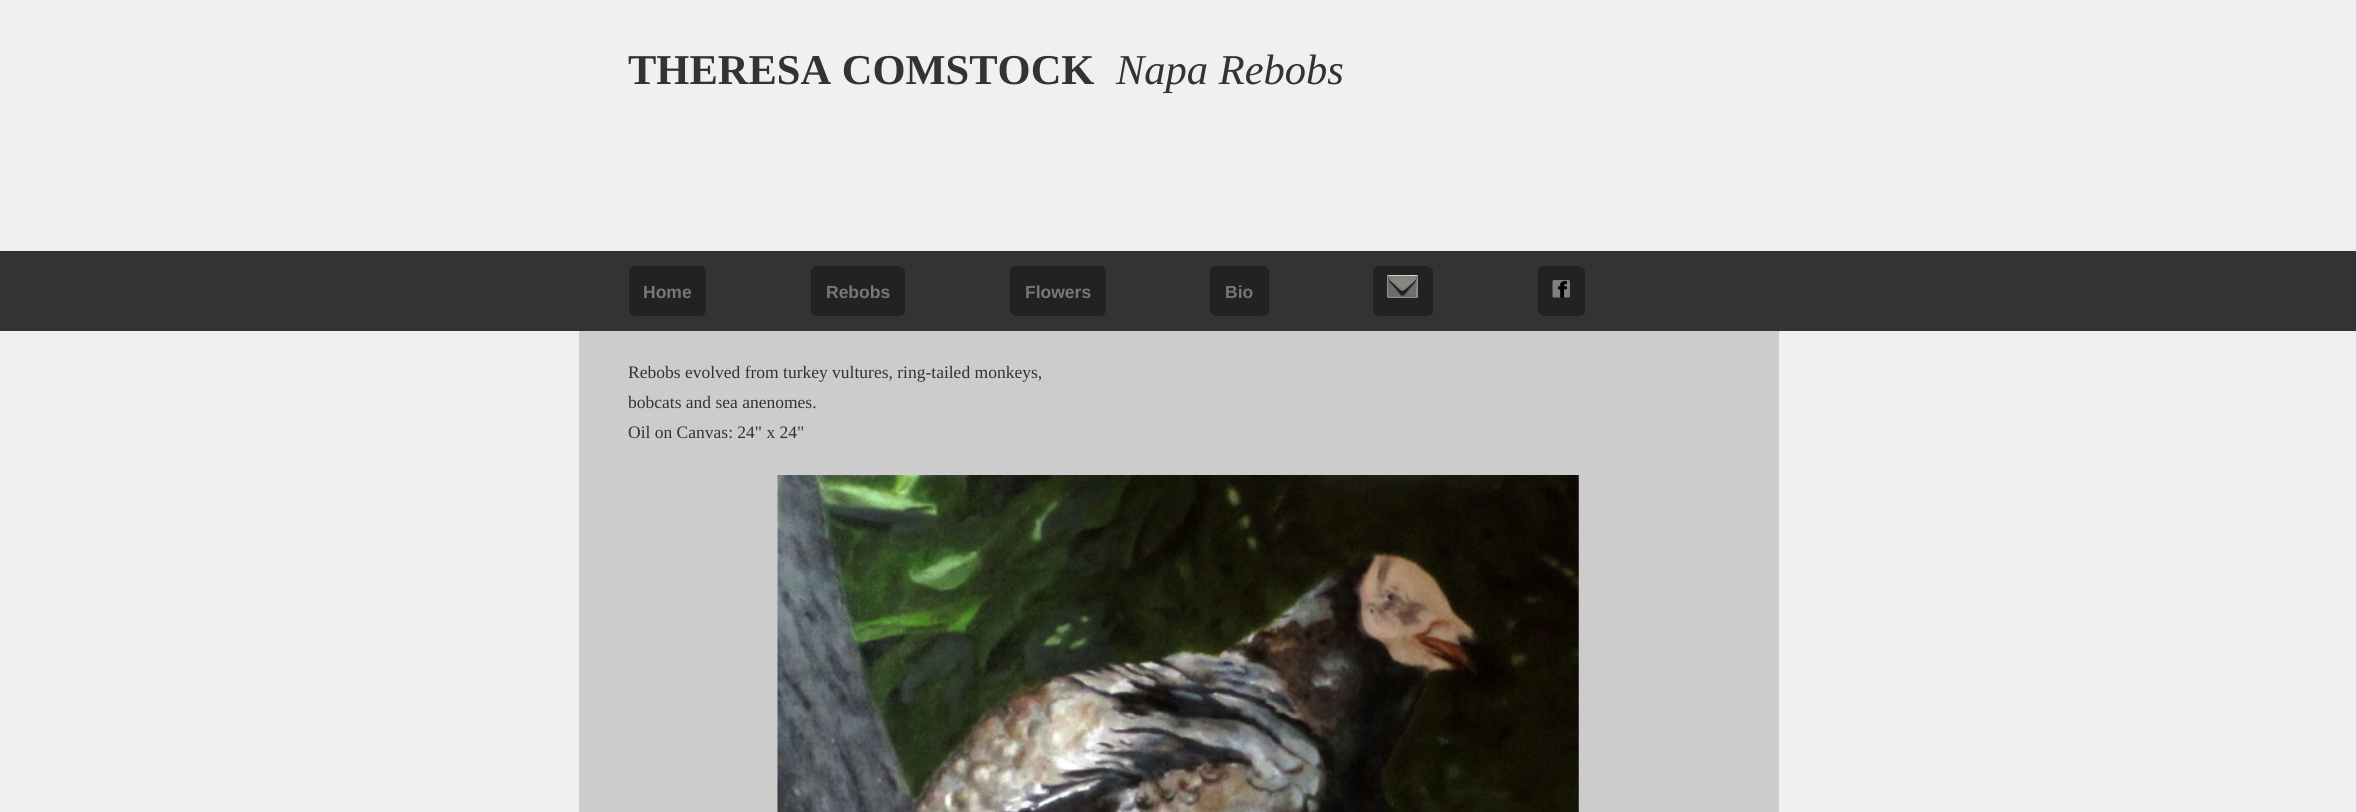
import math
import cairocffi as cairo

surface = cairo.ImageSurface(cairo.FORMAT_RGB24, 2356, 812)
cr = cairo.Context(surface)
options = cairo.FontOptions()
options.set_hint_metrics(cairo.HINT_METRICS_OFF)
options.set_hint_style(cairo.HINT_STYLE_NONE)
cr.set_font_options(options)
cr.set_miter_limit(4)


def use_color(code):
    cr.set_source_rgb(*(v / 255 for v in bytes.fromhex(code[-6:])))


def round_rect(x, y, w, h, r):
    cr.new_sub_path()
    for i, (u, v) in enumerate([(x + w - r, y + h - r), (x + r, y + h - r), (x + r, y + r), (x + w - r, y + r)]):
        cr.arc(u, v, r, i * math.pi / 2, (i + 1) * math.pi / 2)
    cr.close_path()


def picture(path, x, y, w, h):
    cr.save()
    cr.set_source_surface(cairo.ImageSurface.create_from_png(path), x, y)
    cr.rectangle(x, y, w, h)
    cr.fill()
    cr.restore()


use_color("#f0f0f0")
cr.paint()
cr.select_font_face("Liberation Serif", cairo.FONT_SLANT_NORMAL, cairo.FONT_WEIGHT_BOLD)
cr.set_font_size(42.5)
use_color("#333333")
cr.move_to(628, 84)
cr.show_text("THERESA COMSTOCK")
cr.select_font_face("Liberation Serif", cairo.FONT_SLANT_ITALIC)
cr.move_to(1116, 84)
cr.show_text("Napa Rebobs")
cr.rectangle(0, 251, 2356, 80)
cr.fill()
use_color("#222222")
round_rect(1374.5, 267.5, 57, 47, 4.5)
cr.fill_preserve()
cr.set_line_width(3)
cr.stroke()
round_rect(1539.5, 267.5, 44, 47, 4.5)
cr.fill_preserve()
cr.stroke()
round_rect(630.5, 267.5, 74, 47, 4.5)
cr.fill_preserve()
cr.stroke()
cr.select_font_face("Liberation Sans", cairo.FONT_SLANT_NORMAL, cairo.FONT_WEIGHT_BOLD)
cr.set_font_size(17.5)
use_color("#777777")
cr.move_to(643, 298)
cr.show_text("Home")
use_color("#222222")
round_rect(812.5, 267.5, 91, 47, 4.5)
cr.fill_preserve()
cr.stroke()
use_color("#777777")
cr.move_to(826, 298)
cr.show_text("Rebobs")
use_color("#222222")
round_rect(1011.5, 267.5, 93, 47, 4.5)
cr.fill_preserve()
cr.stroke()
use_color("#777777")
cr.move_to(1025, 298)
cr.show_text("Flowers")
use_color("#222222")
round_rect(1211.5, 267.5, 56, 47, 4.5)
cr.fill_preserve()
cr.stroke()
use_color("#777777")
cr.move_to(1225, 298)
cr.show_text("Bio")
picture("img1.png", 1387, 275, 31, 23)
picture("img2.png", 1552, 280, 18, 18)
use_color("#cccccc")
cr.rectangle(579, 331, 1200, 481)
cr.fill()
cr.select_font_face("Liberation Serif")
use_color("#333333")
cr.move_to(628, 378)
cr.show_text("Rebobs evolved from turkey vultures, ring-tailed monkeys,")
cr.move_to(628, 408)
cr.show_text("bobcats and sea anenomes.")
cr.move_to(628, 438)
cr.show_text("Oil on Canvas: 24\" x 24\"")
picture("img3.png", 777, 475, 802, 337)
surface.write_to_png("result.png")
